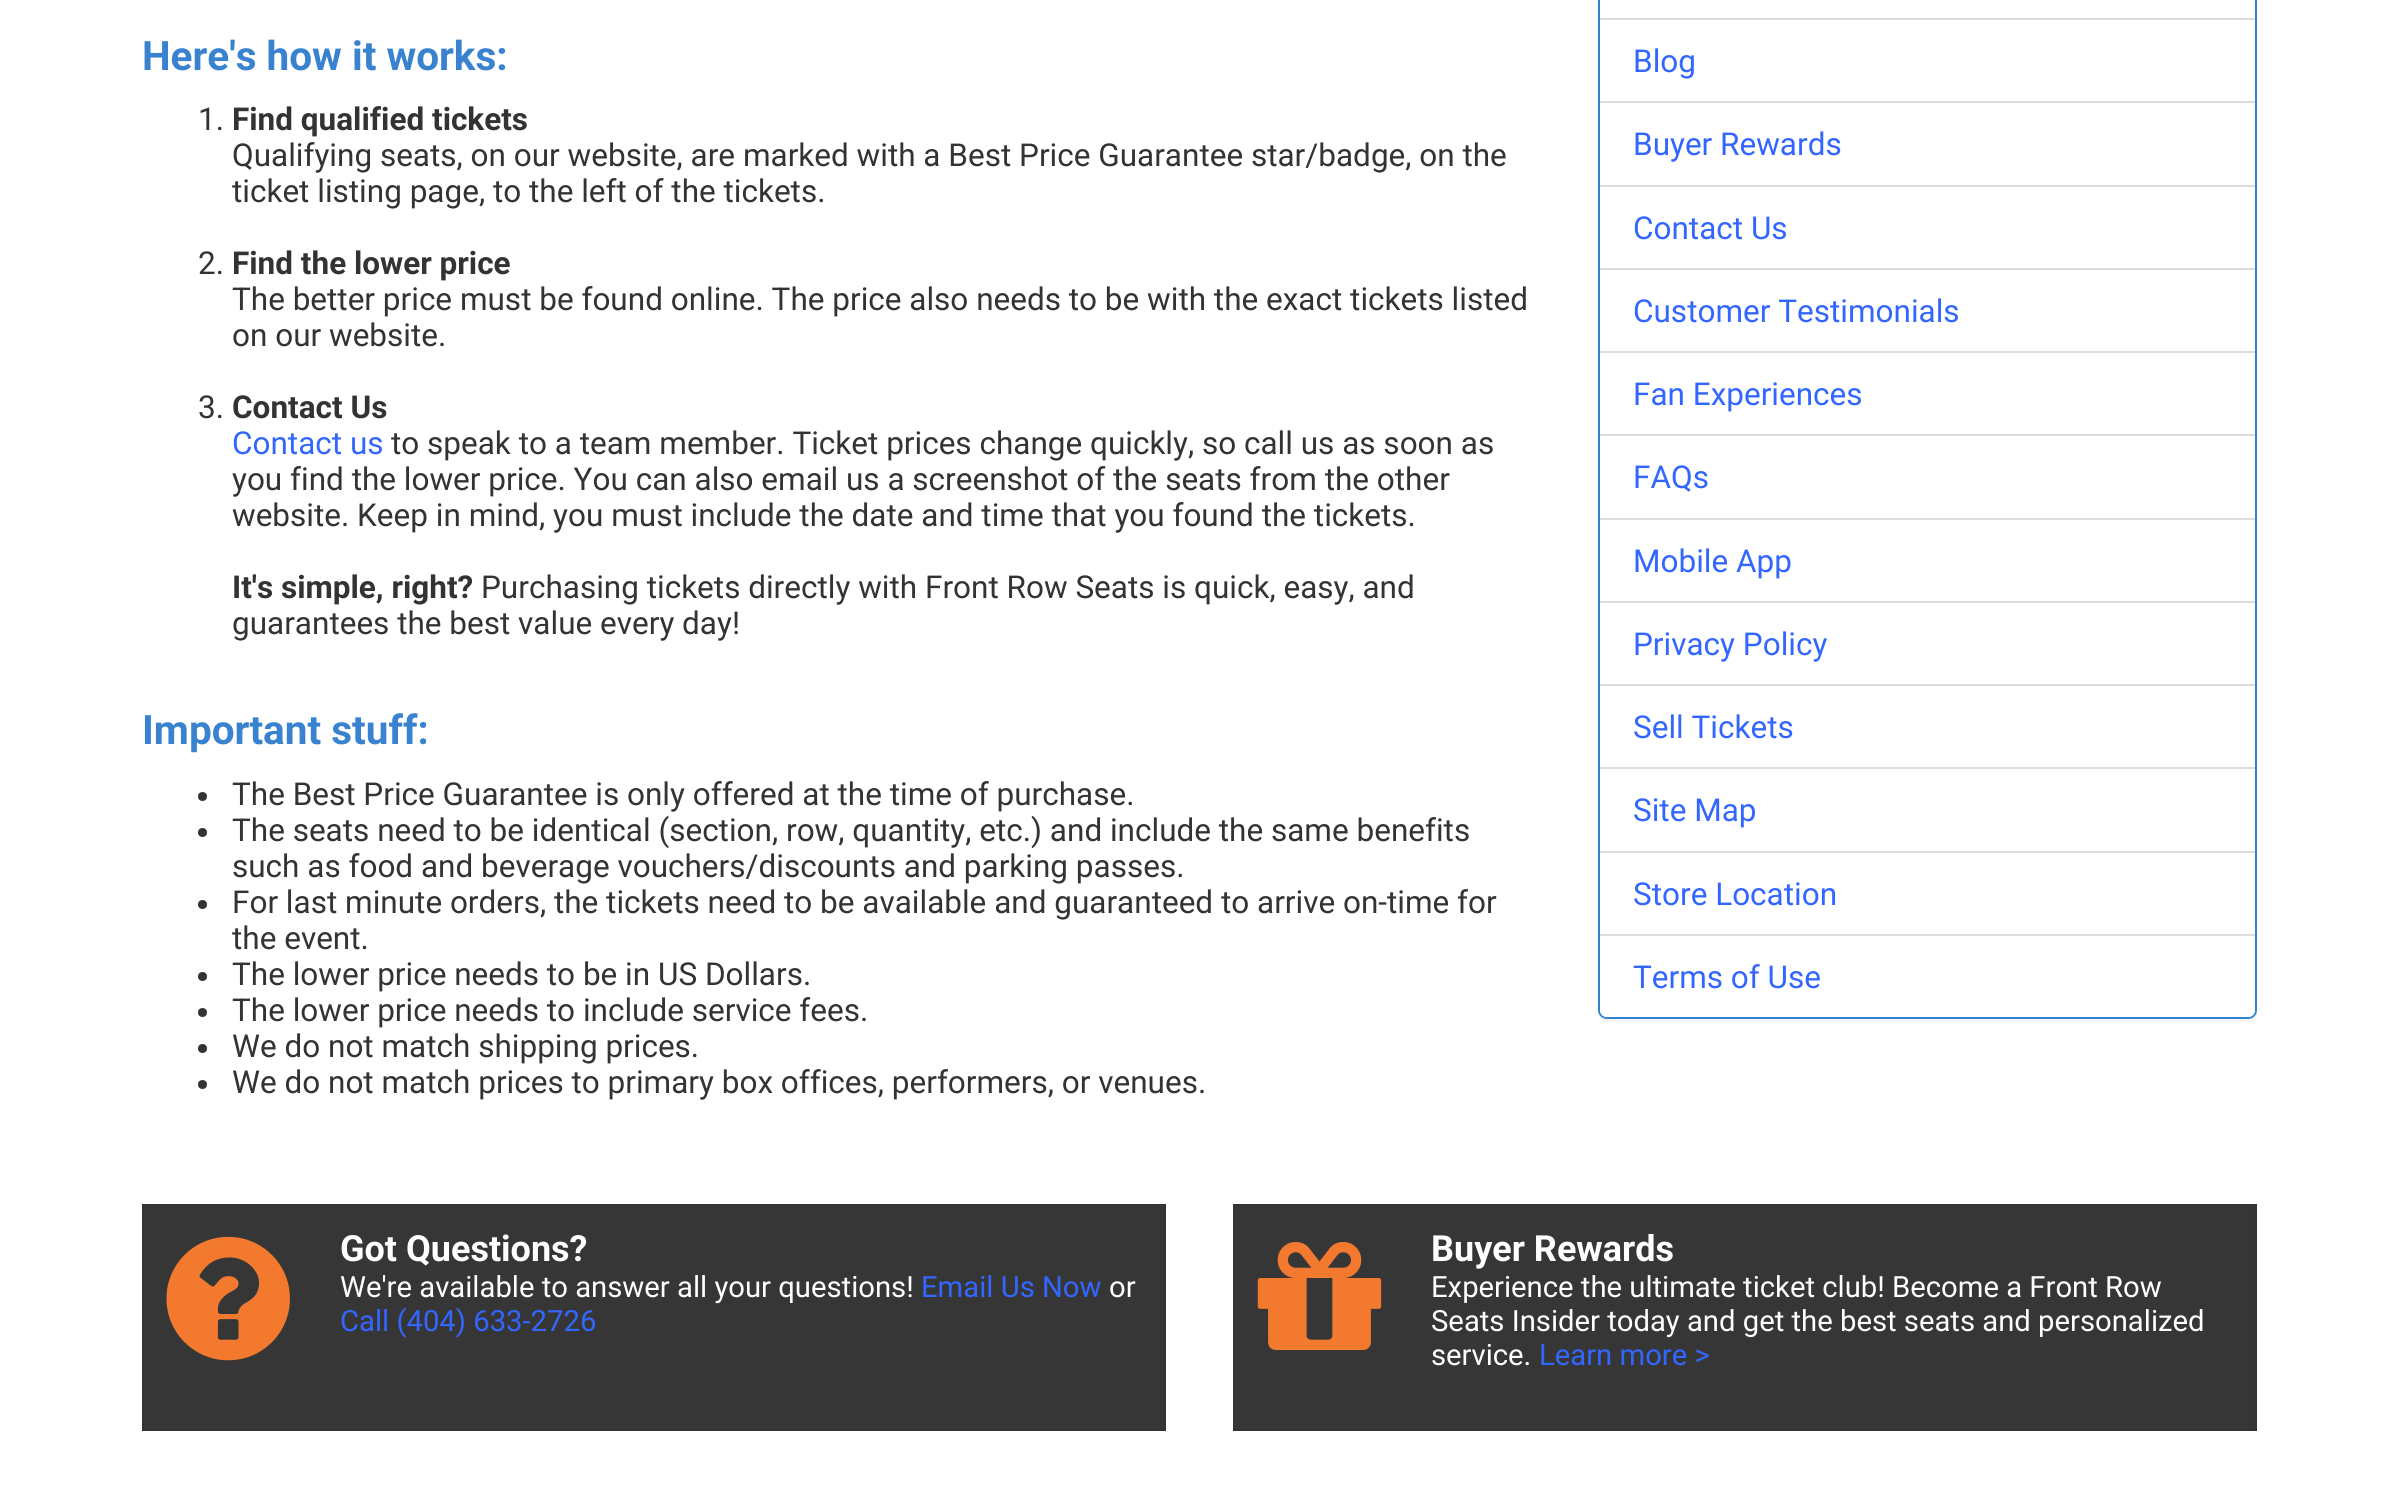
import math
import cairocffi as cairo

surface = cairo.ImageSurface(cairo.FORMAT_RGB24, 2397, 1498)
cr = cairo.Context(surface)
options = cairo.FontOptions()
options.set_hint_metrics(cairo.HINT_METRICS_OFF)
options.set_hint_style(cairo.HINT_STYLE_NONE)
cr.set_font_options(options)
cr.set_miter_limit(4)


def use_color(code):
    cr.set_source_rgb(*(v / 255 for v in bytes.fromhex(code[-6:])))


def round_rect(x, y, w, h, r):
    cr.new_sub_path()
    for i, (u, v) in enumerate([(x + w - r, y + h - r), (x + r, y + h - r), (x + r, y + r), (x + w - r, y + r)]):
        cr.arc(u, v, r, i * math.pi / 2, (i + 1) * math.pi / 2)
    cr.close_path()


def shadow(x, y, w, h, r, blur, alpha):
    cr.push_group_with_content(cairo.CONTENT_ALPHA)
    cr.set_operator(cairo.OPERATOR_SOURCE)
    for i in range(15, -16, -2):
        e = blur * i / 6
        if min(w, h) + 2 * e > 0:
            cr.set_source_rgba(0, 0, 0, alpha * math.erfc((i - 1) / 8.5) / 2)
            round_rect(x - e, y - e, w + 2 * e, h + 2 * e, max(0, min(r + e + blur * .6, min(w, h) / 2 + e)))
            cr.fill()
    cr.mask(cr.pop_group())


def picture(path, x, y, w, h):
    cr.save()
    cr.set_source_surface(cairo.ImageSurface.create_from_png(path), x, y)
    cr.rectangle(x, y, w, h)
    cr.fill()
    cr.restore()


use_color("#ffffff")
cr.paint()
cr.select_font_face("Roboto", cairo.FONT_SLANT_NORMAL, cairo.FONT_WEIGHT_BOLD)
cr.set_font_size(40.5)
use_color("#3882d0")
cr.move_to(142, 70)
cr.show_text("Here's how it works:")
cr.select_font_face("Roboto")
cr.set_font_size(31.5)
use_color("#333333")
cr.move_to(198, 130)
cr.show_text("1.")
cr.select_font_face("Roboto", cairo.FONT_SLANT_NORMAL, cairo.FONT_WEIGHT_BOLD)
cr.move_to(232, 130)
cr.show_text("Find qualified tickets")
cr.select_font_face("Roboto")
cr.move_to(232, 166)
cr.show_text("Qualifying seats, on our website, are marked with a Best Price Guarantee star/badge, on the")
cr.move_to(232, 202)
cr.show_text("ticket listing page, to the left of the tickets.")
cr.move_to(198, 274)
cr.show_text("2.")
cr.select_font_face("Roboto", cairo.FONT_SLANT_NORMAL, cairo.FONT_WEIGHT_BOLD)
cr.move_to(232, 274)
cr.show_text("Find the lower price")
cr.select_font_face("Roboto")
cr.move_to(232, 310)
cr.show_text("The better price must be found online. The price also needs to be with the exact tickets listed")
cr.move_to(232, 346)
cr.show_text("on our website.")
cr.move_to(198, 418)
cr.show_text("3.")
cr.select_font_face("Roboto", cairo.FONT_SLANT_NORMAL, cairo.FONT_WEIGHT_BOLD)
cr.move_to(232, 418)
cr.show_text("Contact Us")
cr.select_font_face("Roboto")
use_color("#3366ff")
cr.move_to(232, 454)
cr.show_text("Contact us")
use_color("#333333")
cr.move_to(391, 454)
cr.show_text("to speak to a team member. Ticket prices change quickly, so call us as soon as")
cr.move_to(232, 490)
cr.show_text("you find the lower price. You can also email us a screenshot of the seats from the other")
cr.move_to(232, 526)
cr.show_text("website. Keep in mind, you must include the date and time that you found the tickets.")
cr.select_font_face("Roboto", cairo.FONT_SLANT_NORMAL, cairo.FONT_WEIGHT_BOLD)
cr.move_to(232, 598)
cr.show_text("It's simple, right?")
cr.select_font_face("Roboto")
cr.move_to(481, 598)
cr.show_text("Purchasing tickets directly with Front Row Seats is quick, easy, and")
cr.move_to(232, 634)
cr.show_text("guarantees the best value every day!")
cr.select_font_face("Roboto", cairo.FONT_SLANT_NORMAL, cairo.FONT_WEIGHT_BOLD)
cr.set_font_size(40.5)
use_color("#3882d0")
cr.move_to(142, 744)
cr.show_text("Important stuff:")
use_color("#333333")
cr.new_path()
cr.arc(202.5, 796.5, 4.5, 0, 2 * math.pi)
cr.fill()
cr.select_font_face("Roboto")
cr.set_font_size(31.5)
cr.move_to(232, 805)
cr.show_text("The Best Price Guarantee is only offered at the time of purchase.")
cr.new_path()
cr.arc(202.5, 832.5, 4.5, 0, 2 * math.pi)
cr.fill()
cr.move_to(232, 841)
cr.show_text("The seats need to be identical (section, row, quantity, etc.) and include the same benefits")
cr.move_to(232, 877)
cr.show_text("such as food and beverage vouchers/discounts and parking passes.")
cr.new_path()
cr.arc(202.5, 904.5, 4.5, 0, 2 * math.pi)
cr.fill()
cr.move_to(232, 913)
cr.show_text("For last minute orders, the tickets need to be available and guaranteed to arrive on-time for")
cr.move_to(232, 949)
cr.show_text("the event.")
cr.new_path()
cr.arc(202.5, 976.5, 4.5, 0, 2 * math.pi)
cr.fill()
cr.move_to(232, 985)
cr.show_text("The lower price needs to be in US Dollars.")
cr.new_path()
cr.arc(202.5, 1012.5, 4.5, 0, 2 * math.pi)
cr.fill()
cr.move_to(232, 1021)
cr.show_text("The lower price needs to include service fees.")
cr.new_path()
cr.arc(202.5, 1048.5, 4.5, 0, 2 * math.pi)
cr.fill()
cr.move_to(232, 1057)
cr.show_text("We do not match shipping prices.")
cr.new_path()
cr.arc(202.5, 1084.5, 4.5, 0, 2 * math.pi)
cr.fill()
cr.move_to(232, 1093)
cr.show_text("We do not match prices to primary box offices, performers, or venues.")
use_color("#000000")
shadow(1598, -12, 659, 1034, 9, 1, 0.05)
use_color("#ffffff")
round_rect(1599, -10, 657, 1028, 8)
cr.fill_preserve()
use_color("#3382d2")
cr.stroke()
use_color("#dddddd")
cr.rectangle(1600, 18, 655, 2)
cr.fill()
cr.rectangle(1600, 101, 655, 2)
cr.fill()
use_color("#3366ff")
cr.move_to(1633, 72)
cr.show_text("Blog")
use_color("#dddddd")
cr.rectangle(1600, 185, 655, 2)
cr.fill()
use_color("#3366ff")
cr.move_to(1633, 155)
cr.show_text("Buyer Rewards")
use_color("#dddddd")
cr.rectangle(1600, 268, 655, 2)
cr.fill()
use_color("#3366ff")
cr.move_to(1633, 239)
cr.show_text("Contact Us")
use_color("#dddddd")
cr.rectangle(1600, 351, 655, 2)
cr.fill()
use_color("#3366ff")
cr.move_to(1633, 322)
cr.show_text("Customer Testimonials")
use_color("#dddddd")
cr.rectangle(1600, 434, 655, 2)
cr.fill()
use_color("#3366ff")
cr.move_to(1633, 405)
cr.show_text("Fan Experiences")
use_color("#dddddd")
cr.rectangle(1600, 518, 655, 2)
cr.fill()
use_color("#3366ff")
cr.move_to(1633, 488)
cr.show_text("FAQs")
use_color("#dddddd")
cr.rectangle(1600, 601, 655, 2)
cr.fill()
use_color("#3366ff")
cr.move_to(1633, 572)
cr.show_text("Mobile App")
use_color("#dddddd")
cr.rectangle(1600, 684, 655, 2)
cr.fill()
use_color("#3366ff")
cr.move_to(1633, 655)
cr.show_text("Privacy Policy")
use_color("#dddddd")
cr.rectangle(1600, 767, 655, 2)
cr.fill()
use_color("#3366ff")
cr.move_to(1633, 738)
cr.show_text("Sell Tickets")
use_color("#dddddd")
cr.rectangle(1600, 851, 655, 2)
cr.fill()
use_color("#3366ff")
cr.move_to(1633, 821)
cr.show_text("Site Map")
cr.move_to(1633, 905)
cr.show_text("Store Location")
use_color("#ffffff")
cr.new_path()
cr.move_to(1600, 934)
cr.line_to(2255, 934)
cr.line_to(2255, 1010)
cr.curve_to(2255, 1014, 2252, 1017, 2248, 1017)
cr.line_to(1607, 1017)
cr.curve_to(1603, 1017, 1600, 1014, 1600, 1010)
cr.close_path()
cr.fill()
use_color("#dddddd")
cr.rectangle(1600, 934, 655, 2)
cr.fill()
use_color("#3366ff")
cr.move_to(1633, 988)
cr.show_text("Terms of Use")
use_color("#363636")
cr.rectangle(143, 1205, 1022, 225)
cr.fill_preserve()
use_color("#333333")
cr.stroke()
picture("img1.png", 166, 1236, 124, 125)
cr.select_font_face("Roboto", cairo.FONT_SLANT_NORMAL, cairo.FONT_WEIGHT_BOLD)
cr.set_font_size(36)
use_color("#ffffff")
cr.move_to(340, 1261)
cr.show_text("Got Questions?")
cr.select_font_face("Roboto")
cr.set_font_size(29.25)
cr.move_to(340, 1297)
cr.show_text("We're available to answer all your questions!")
use_color("#3366ff")
cr.move_to(921, 1297)
cr.show_text("Email Us Now")
use_color("#ffffff")
cr.move_to(1109, 1297)
cr.show_text("or")
use_color("#3366ff")
cr.move_to(340, 1331)
cr.show_text("Call (404) 633-2726")
use_color("#363636")
cr.rectangle(1234, 1205, 1022, 225)
cr.fill_preserve()
use_color("#333333")
cr.stroke()
picture("img2.png", 1257, 1242, 125, 108)
cr.select_font_face("Roboto", cairo.FONT_SLANT_NORMAL, cairo.FONT_WEIGHT_BOLD)
cr.set_font_size(36)
use_color("#ffffff")
cr.move_to(1431, 1261)
cr.show_text("Buyer Rewards")
cr.select_font_face("Roboto")
cr.set_font_size(29.25)
cr.move_to(1431, 1297)
cr.show_text("Experience the ultimate ticket club! Become a Front Row")
cr.move_to(1431, 1331)
cr.show_text("Seats Insider today and get the best seats and personalized")
cr.move_to(1431, 1365)
cr.show_text("service.")
use_color("#3366ff")
cr.move_to(1539, 1365)
cr.show_text("Learn more >")
surface.write_to_png("result.png")
